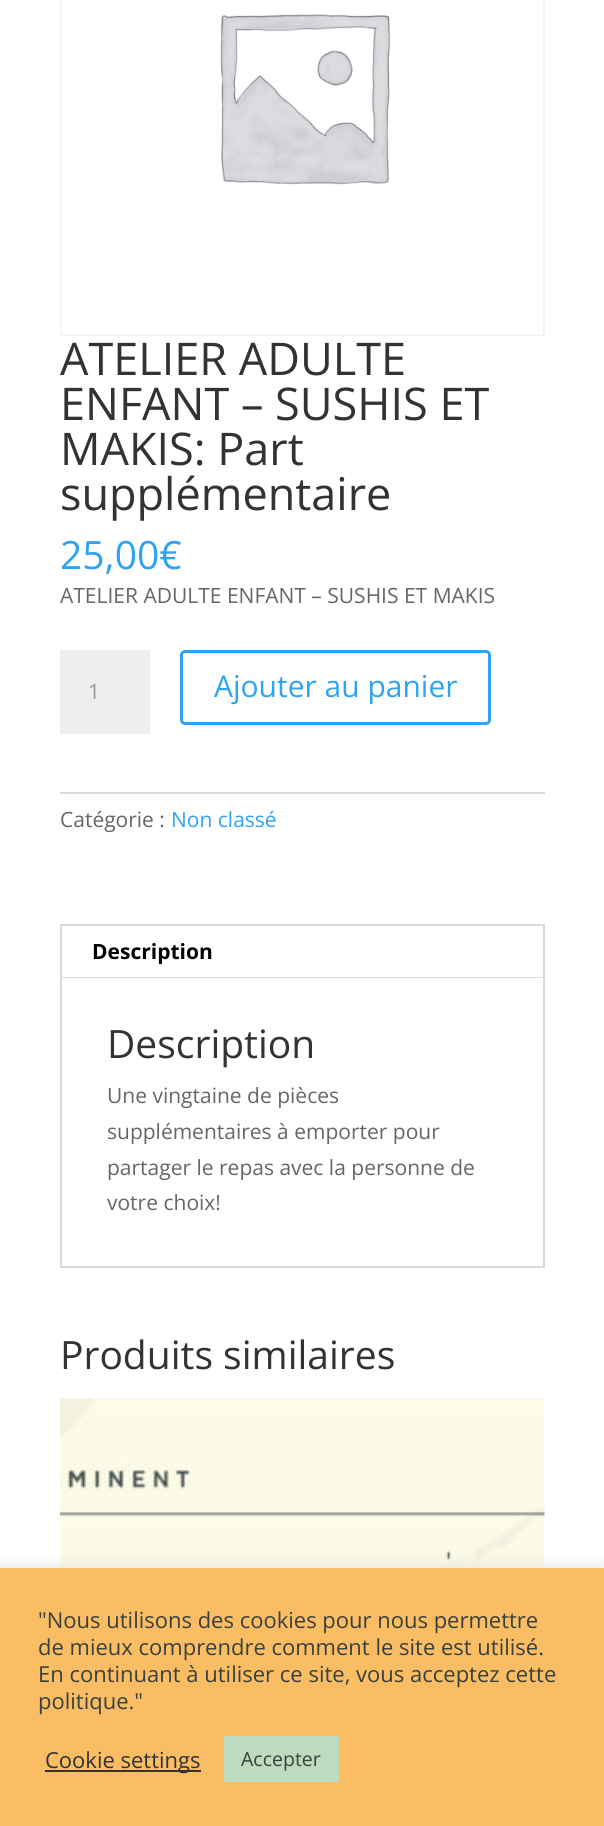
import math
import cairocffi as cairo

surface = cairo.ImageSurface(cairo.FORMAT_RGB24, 604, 1826)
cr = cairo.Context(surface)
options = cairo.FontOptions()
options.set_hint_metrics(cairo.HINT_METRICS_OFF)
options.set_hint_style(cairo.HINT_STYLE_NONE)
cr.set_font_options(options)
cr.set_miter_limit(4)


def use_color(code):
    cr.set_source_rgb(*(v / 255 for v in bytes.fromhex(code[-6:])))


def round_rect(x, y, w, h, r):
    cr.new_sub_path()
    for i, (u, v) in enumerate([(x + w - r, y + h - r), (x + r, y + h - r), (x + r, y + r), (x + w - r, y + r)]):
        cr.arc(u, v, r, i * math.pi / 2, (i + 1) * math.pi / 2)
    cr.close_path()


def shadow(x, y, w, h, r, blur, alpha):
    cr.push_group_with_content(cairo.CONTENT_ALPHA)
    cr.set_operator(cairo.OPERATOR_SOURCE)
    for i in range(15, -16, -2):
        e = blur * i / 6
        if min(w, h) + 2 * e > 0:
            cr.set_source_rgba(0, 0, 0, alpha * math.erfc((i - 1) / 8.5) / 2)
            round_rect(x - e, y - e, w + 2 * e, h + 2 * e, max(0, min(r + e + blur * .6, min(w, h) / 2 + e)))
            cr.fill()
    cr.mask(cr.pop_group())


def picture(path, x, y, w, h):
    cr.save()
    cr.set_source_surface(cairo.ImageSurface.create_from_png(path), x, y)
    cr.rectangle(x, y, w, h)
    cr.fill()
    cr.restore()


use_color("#ffffff")
cr.paint()
cr.rectangle(61, -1, 483, 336)
use_color("#f2f2f2")
cr.stroke()
picture("img1.png", 61, 0, 482, 335)
cr.select_font_face("Open Sans")
cr.set_font_size(45)
use_color("#333333")
cr.move_to(60, 375)
cr.show_text("ATELIER ADULTE")
cr.move_to(60, 420)
cr.show_text("ENFANT – SUSHIS ET")
cr.move_to(60, 465)
cr.show_text("MAKIS: Part")
cr.move_to(60, 510)
cr.show_text("supplémentaire")
cr.set_font_size(39)
use_color("#2ea3f2")
cr.move_to(60, 569)
cr.show_text("25,00€")
cr.set_font_size(21)
use_color("#666666")
cr.move_to(60, 603)
cr.show_text("ATELIER ADULTE ENFANT – SUSHIS ET MAKIS")
use_color("#eeeeee")
cr.rectangle(60, 650, 90, 84)
cr.fill()
use_color("#999999")
cr.move_to(88, 699)
cr.show_text("1")
round_rect(181.5, 651.5, 308, 72, 3.5)
use_color("#2ea3f2")
cr.set_line_width(3)
cr.stroke()
cr.set_font_size(30)
cr.move_to(214, 697)
cr.show_text("Ajouter au panier")
use_color("#dadada")
cr.rectangle(60, 792, 485, 2)
cr.fill()
cr.set_font_size(21)
use_color("#666666")
cr.move_to(60, 827)
cr.show_text("Catégorie :")
use_color("#2ea3f2")
cr.move_to(171, 827)
cr.show_text("Non classé")
cr.rectangle(61, 925, 483, 342)
use_color("#d9d9d9")
cr.set_line_width(2)
cr.stroke()
use_color("#e0dadf")
cr.rectangle(62, 977, 481, 1)
cr.fill()
cr.select_font_face("Open Sans", cairo.FONT_SLANT_NORMAL, cairo.FONT_WEIGHT_BOLD)
use_color("#000000")
cr.move_to(92, 959)
cr.show_text("Description")
cr.select_font_face("Open Sans")
cr.set_font_size(39)
use_color("#333333")
cr.move_to(107, 1058)
cr.show_text("Description")
cr.set_font_size(21)
use_color("#666666")
cr.move_to(107, 1103)
cr.show_text("Une vingtaine de pièces")
cr.move_to(107, 1139)
cr.show_text("supplémentaires à emporter pour")
cr.move_to(107, 1175)
cr.show_text("partager le repas avec la personne de")
cr.move_to(107, 1210)
cr.show_text("votre choix!")
cr.set_font_size(39)
use_color("#333333")
cr.move_to(60, 1369)
cr.show_text("Produits similaires")
picture("img2.png", 60, 1398, 485, 170)
use_color("#acabab")
shadow(0, 1566, 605, 260, 0, 7.5, 0.3)
use_color("#fabd64")
cr.rectangle(0, 1568, 604, 258)
cr.fill()
cr.set_font_size(22)
use_color("#38413e")
cr.move_to(38, 1628)
cr.show_text("\"Nous utilisons des cookies pour nous permettre")
cr.move_to(38, 1655)
cr.show_text("de mieux comprendre comment le site est utilisé.")
cr.move_to(38, 1682)
cr.show_text("En continuant à utiliser ce site, vous acceptez cette")
cr.move_to(38, 1709)
cr.show_text("politique.\"")
use_color("#333333")
cr.rectangle(45, 1770, 156, 2)
cr.fill()
cr.move_to(45, 1768)
cr.show_text("Cookie settings")
use_color("#bedbc0")
cr.rectangle(224, 1736, 115, 46)
cr.fill()
cr.set_font_size(19.5)
use_color("#38413e")
cr.move_to(241, 1766)
cr.show_text("Accepter")
surface.write_to_png("result.png")
